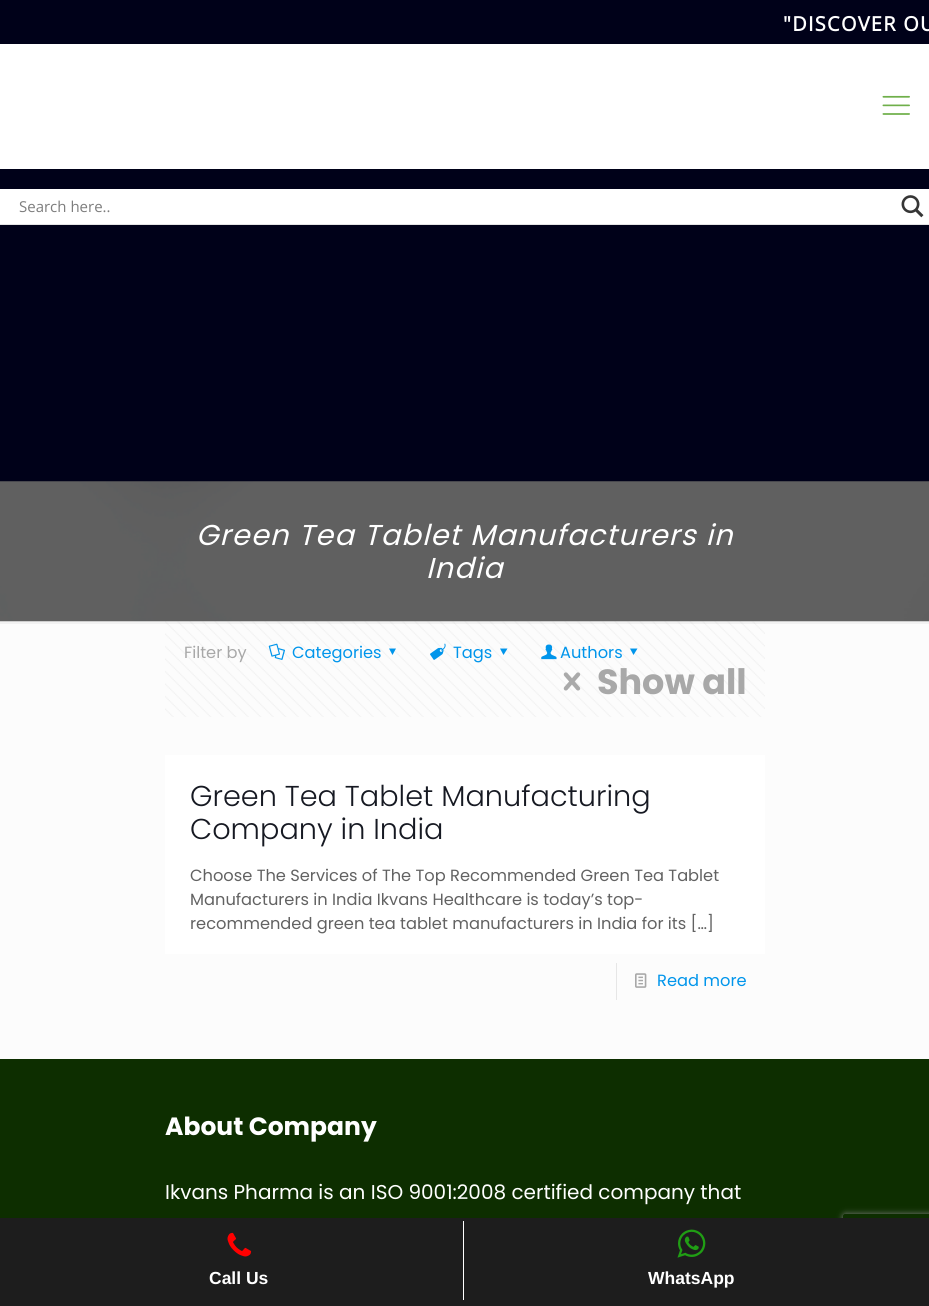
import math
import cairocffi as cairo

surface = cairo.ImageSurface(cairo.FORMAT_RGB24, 929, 1306)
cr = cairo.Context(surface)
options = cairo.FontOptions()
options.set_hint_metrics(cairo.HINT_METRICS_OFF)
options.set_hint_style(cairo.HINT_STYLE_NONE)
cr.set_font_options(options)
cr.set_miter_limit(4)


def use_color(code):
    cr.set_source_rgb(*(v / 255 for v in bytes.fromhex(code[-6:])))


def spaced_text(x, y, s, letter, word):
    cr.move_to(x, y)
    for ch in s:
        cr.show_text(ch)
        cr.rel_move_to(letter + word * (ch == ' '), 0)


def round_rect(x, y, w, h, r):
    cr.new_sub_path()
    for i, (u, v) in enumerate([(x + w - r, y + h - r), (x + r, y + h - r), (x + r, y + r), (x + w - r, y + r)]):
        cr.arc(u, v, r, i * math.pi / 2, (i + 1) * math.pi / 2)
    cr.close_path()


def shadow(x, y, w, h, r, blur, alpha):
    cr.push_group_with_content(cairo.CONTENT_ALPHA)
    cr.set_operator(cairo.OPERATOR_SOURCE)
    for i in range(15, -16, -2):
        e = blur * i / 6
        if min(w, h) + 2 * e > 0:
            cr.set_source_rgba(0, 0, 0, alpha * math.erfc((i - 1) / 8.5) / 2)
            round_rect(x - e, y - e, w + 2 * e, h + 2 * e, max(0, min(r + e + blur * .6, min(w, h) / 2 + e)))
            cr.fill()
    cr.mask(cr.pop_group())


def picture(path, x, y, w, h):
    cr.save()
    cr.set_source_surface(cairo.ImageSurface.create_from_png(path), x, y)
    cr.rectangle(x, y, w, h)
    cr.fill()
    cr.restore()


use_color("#fcfcfc")
cr.paint()
use_color("#000119")
cr.rectangle(0, 0, 929, 482)
cr.fill()
cr.select_font_face("Open Sans", cairo.FONT_SLANT_NORMAL, cairo.FONT_WEIGHT_BOLD)
cr.set_font_size(20)
use_color("#ffffff")
spaced_text(783, 31, "\"DISCOVER OU", 1.25, 0)
cr.rectangle(0, 44, 929, 125)
cr.fill()
picture("img1.png", 882, 95, 28, 20)
use_color("#e4e4e4")
cr.rectangle(0, 224, 929, 1)
cr.fill()
use_color("#ffffff")
cr.rectangle(0, 189, 929, 35)
cr.fill()
cr.select_font_face("Open Sans")
cr.set_font_size(15)
use_color("#7d7d7d")
cr.move_to(19, 212)
cr.show_text("Search here..")
picture("img2.png", 901, 195, 23, 23)
picture("img3.png", 0, 481, 929, 141)
cr.select_font_face("Poppins", cairo.FONT_SLANT_ITALIC)
cr.set_font_size(28.75)
use_color("#ffffff")
spaced_text(196, 545, "Green Tea Tablet Manufacturers in", 1.25, 0)
spaced_text(426, 578, "India", 1.25, 0)
picture("img4.png", 165, 621, 600, 96)
cr.set_source_rgba(0, 0, 0, 0.04)
cr.rectangle(0, 621, 929, 3)
cr.fill()
cr.select_font_face("Poppins")
cr.set_font_size(16.25)
use_color("#a8a8a8")
cr.move_to(184, 658)
cr.show_text("Filter by")
picture("img5.png", 268, 643, 17, 17)
use_color("#0095eb")
cr.move_to(292, 658)
cr.show_text("Categories")
cr.new_path()
cr.move_to(396, 648.5)
cr.line_to(392.5, 655)
cr.line_to(389, 648.5)
cr.close_path()
cr.fill()
picture("img6.png", 430, 643, 16, 17)
cr.move_to(453, 658)
cr.show_text("Tags")
cr.new_path()
cr.move_to(507.5, 648.5)
cr.line_to(503.5, 655)
cr.line_to(500, 648.5)
cr.close_path()
cr.fill()
picture("img7.png", 541, 644, 16, 16)
cr.move_to(560, 658)
cr.show_text("Authors")
cr.new_path()
cr.move_to(637.5, 648.5)
cr.line_to(633.5, 655)
cr.line_to(630, 648.5)
cr.close_path()
cr.fill()
picture("img8.png", 563, 672, 18, 19)
cr.select_font_face("Poppins", cairo.FONT_SLANT_NORMAL, cairo.FONT_WEIGHT_BOLD)
cr.set_font_size(35)
use_color("#a8a8a8")
cr.move_to(597, 694)
cr.show_text("Show all")
use_color("#ffffff")
cr.rectangle(165, 755, 600, 199)
cr.fill()
cr.select_font_face("Poppins Light")
cr.set_font_size(28.75)
use_color("#161922")
cr.move_to(190, 806)
cr.show_text("Green Tea Tablet Manufacturing")
cr.move_to(190, 839)
cr.show_text("Company in India")
cr.select_font_face("Poppins")
cr.set_font_size(16.25)
use_color("#626262")
cr.move_to(190, 881)
cr.show_text("Choose The Services of The Top Recommended Green Tea Tablet")
cr.move_to(190, 905)
cr.show_text("Manufacturers in India Ikvans Healthcare is today’s top-")
cr.move_to(190, 929)
cr.show_text("recommended green tea tablet manufacturers in India for its […]")
use_color("#e6e6e6")
cr.rectangle(616, 963, 1, 37)
cr.fill()
picture("img9.png", 635, 973, 12, 15)
use_color("#0095eb")
cr.move_to(657, 986)
cr.show_text("Read more")
use_color("#0d2e00")
cr.rectangle(0, 1059, 929, 159)
cr.fill()
cr.select_font_face("Poppins", cairo.FONT_SLANT_NORMAL, cairo.FONT_WEIGHT_BOLD)
cr.set_font_size(25)
use_color("#ffffff")
cr.move_to(165, 1135)
cr.show_text("About Company")
cr.select_font_face("Poppins")
cr.set_font_size(20)
cr.move_to(165, 1199)
cr.show_text("Ikvans Pharma is an ISO 9001:2008 certified company that")
cr.save()
cr.set_fill_rule(cairo.FILL_RULE_EVEN_ODD)
cr.new_path()
cr.move_to(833, 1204)
cr.line_to(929, 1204)
cr.line_to(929, 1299)
cr.line_to(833, 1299)
cr.close_path()
cr.move_to(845.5, 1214)
cr.line_to(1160.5, 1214)
cr.curve_to(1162, 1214, 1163, 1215, 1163, 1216.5)
cr.line_to(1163, 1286.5)
cr.curve_to(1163, 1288, 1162, 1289, 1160.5, 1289)
cr.line_to(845.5, 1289)
cr.curve_to(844, 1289, 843, 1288, 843, 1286.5)
cr.line_to(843, 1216.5)
cr.curve_to(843, 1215, 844, 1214, 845.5, 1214)
cr.close_path()
cr.clip()
use_color("#808080")
shadow(843, 1214, 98, 75, 2.5, 3, 1)
cr.restore()
use_color("#1d1d1d")
cr.rectangle(0, 1218, 929, 88)
cr.fill()
use_color("#ffffff")
cr.rectangle(463, 1221, 1, 79)
cr.fill()
picture("img10.png", 227, 1232, 25, 25)
cr.select_font_face("Liberation Sans", cairo.FONT_SLANT_NORMAL, cairo.FONT_WEIGHT_BOLD)
cr.set_font_size(17.5)
cr.move_to(209, 1284)
cr.show_text("Call Us")
picture("img11.png", 677, 1229, 29, 29)
cr.move_to(648, 1284)
cr.show_text("WhatsApp")
surface.write_to_png("result.png")
